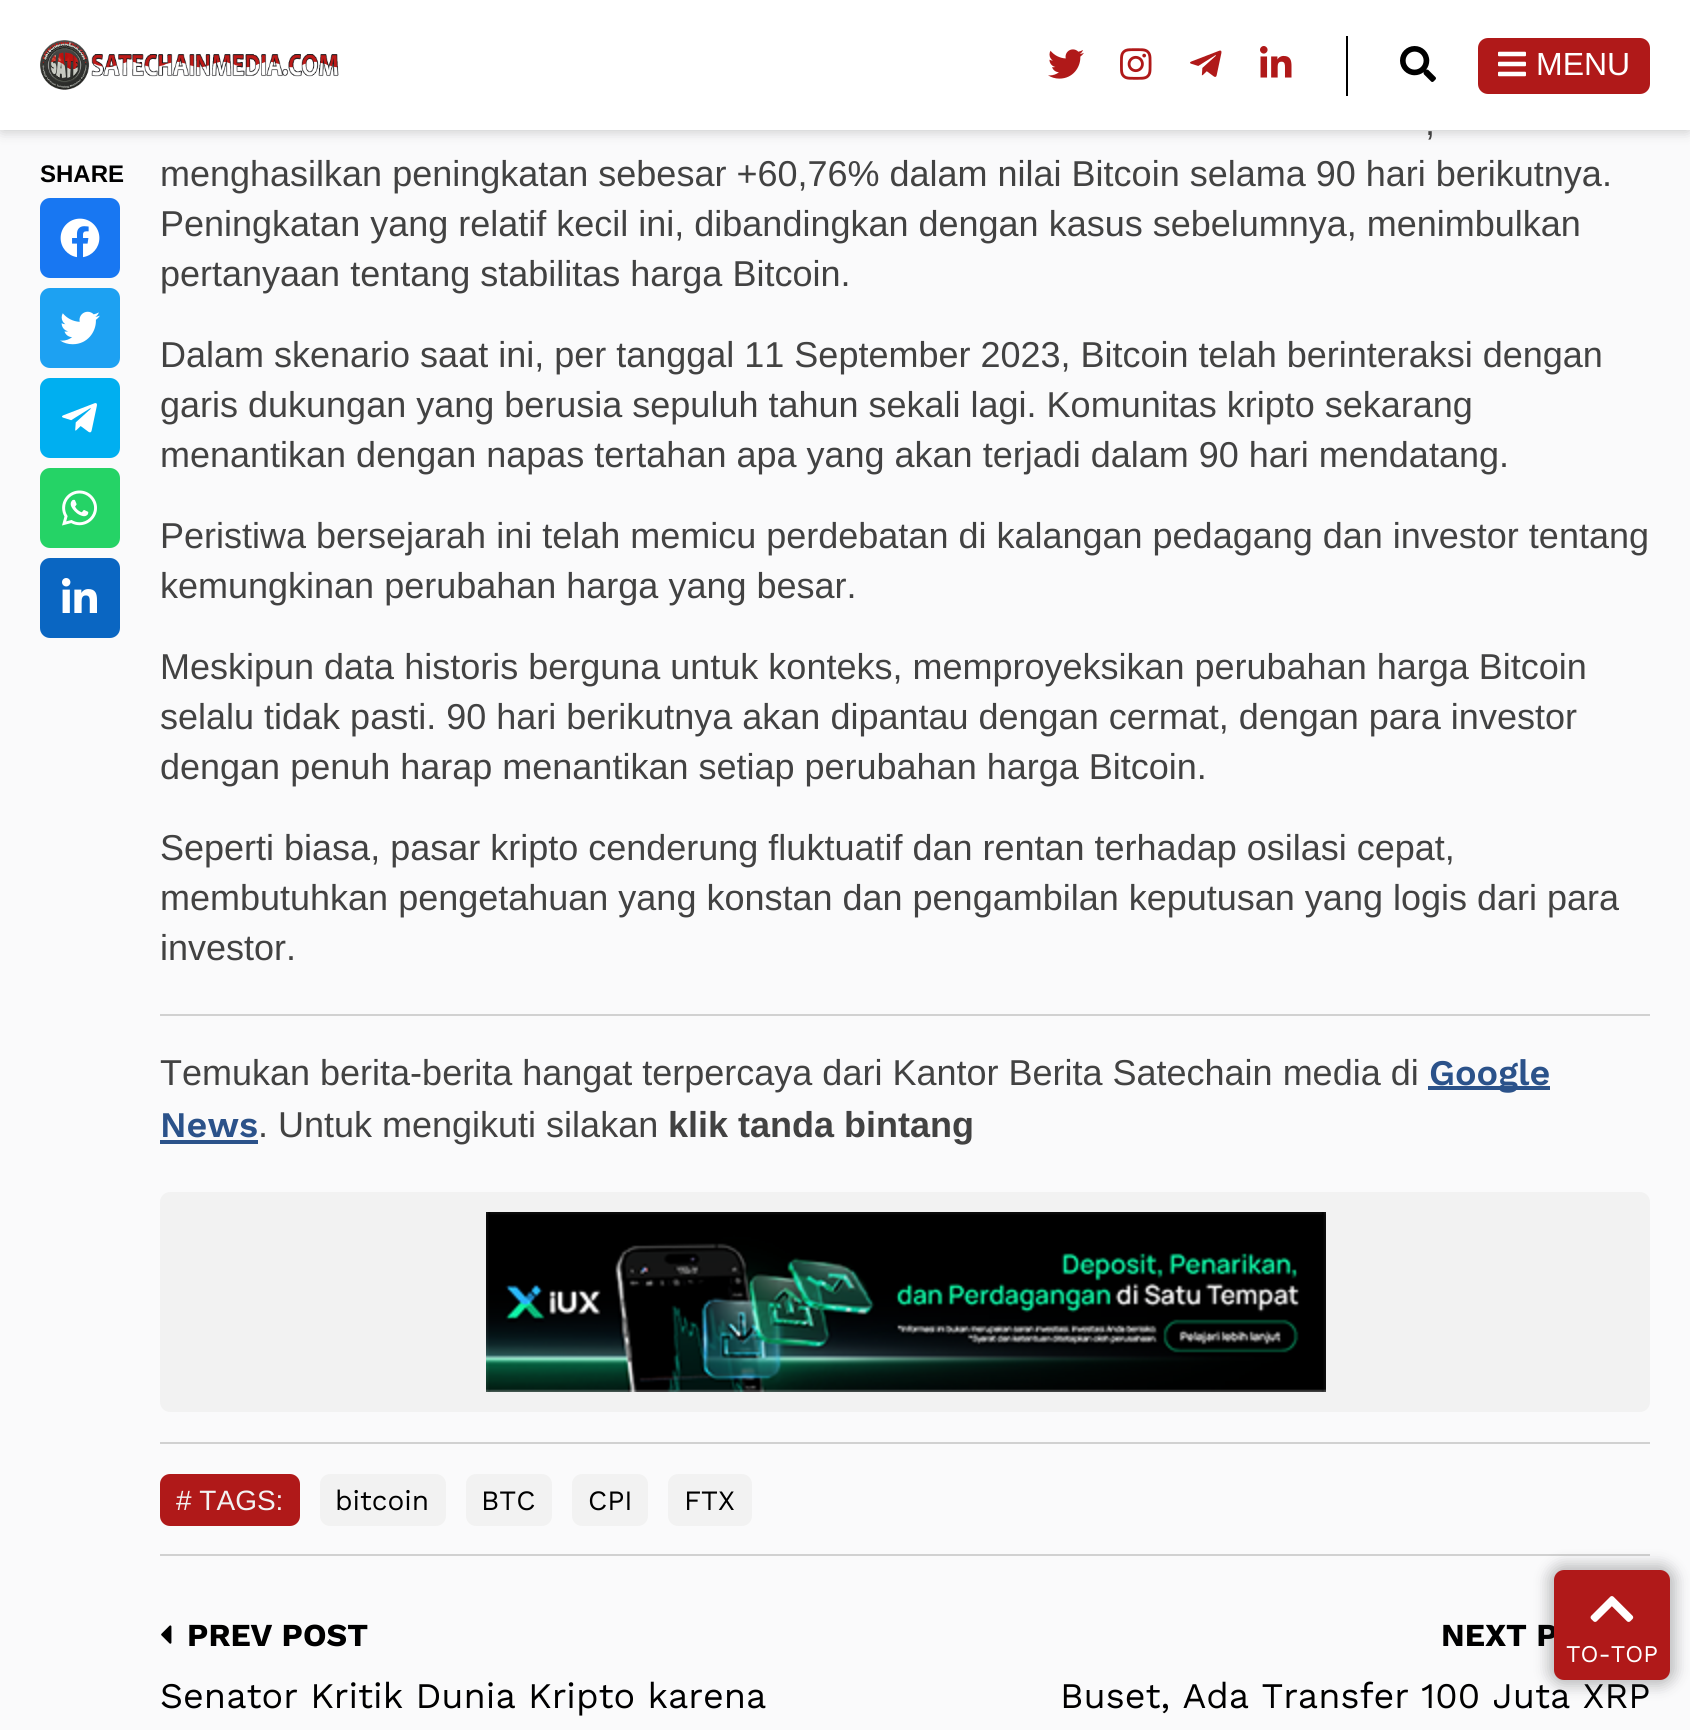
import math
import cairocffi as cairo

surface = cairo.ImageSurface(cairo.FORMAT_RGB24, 1690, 1730)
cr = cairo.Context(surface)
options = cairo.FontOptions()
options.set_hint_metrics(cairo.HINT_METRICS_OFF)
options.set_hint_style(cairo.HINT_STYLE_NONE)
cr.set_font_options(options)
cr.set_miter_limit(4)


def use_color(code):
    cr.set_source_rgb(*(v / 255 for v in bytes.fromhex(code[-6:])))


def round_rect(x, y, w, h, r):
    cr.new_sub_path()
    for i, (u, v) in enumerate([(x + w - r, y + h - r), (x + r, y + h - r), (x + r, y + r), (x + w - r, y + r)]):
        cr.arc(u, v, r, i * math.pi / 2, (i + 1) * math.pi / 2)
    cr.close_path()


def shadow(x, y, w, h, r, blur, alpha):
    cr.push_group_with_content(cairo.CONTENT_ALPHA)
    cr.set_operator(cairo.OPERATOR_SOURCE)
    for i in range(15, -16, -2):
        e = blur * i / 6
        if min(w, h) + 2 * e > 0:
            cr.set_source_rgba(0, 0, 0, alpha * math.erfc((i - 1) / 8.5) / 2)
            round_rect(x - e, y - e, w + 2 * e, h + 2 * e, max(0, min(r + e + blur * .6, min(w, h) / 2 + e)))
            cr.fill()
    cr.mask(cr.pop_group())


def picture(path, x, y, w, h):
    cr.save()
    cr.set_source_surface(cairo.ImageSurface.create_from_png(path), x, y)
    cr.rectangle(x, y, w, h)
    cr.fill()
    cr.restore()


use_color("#fafafb")
cr.paint()
use_color("#202124")
shadow(2, 4, 1686, 126, 0, 7, 0.28)
use_color("#ffffff")
cr.rectangle(0, 0, 1690, 130)
cr.fill()
picture("img1.png", 40, 40, 299, 50)
use_color("#000000")
cr.rectangle(1346, 36, 2, 60)
cr.fill()
picture("img2.png", 1048, 49, 36, 30)
picture("img3.png", 1120, 48, 32, 32)
picture("img4.png", 1190, 50, 32, 27)
picture("img5.png", 1260, 46, 32, 32)
picture("img6.png", 1400, 46, 36, 36)
use_color("#b01919")
round_rect(1478, 38, 172, 56, 10)
cr.fill()
picture("img7.png", 1498, 51, 28, 26)
cr.select_font_face("Liberation Sans")
cr.set_font_size(32)
use_color("#ffffff")
cr.move_to(1536, 75)
cr.show_text("MENU")
cr.select_font_face("Liberation Sans", cairo.FONT_SLANT_NORMAL, cairo.FONT_WEIGHT_BOLD)
cr.set_font_size(24)
use_color("#000000")
cr.move_to(40, 182)
cr.show_text("SHARE")
use_color("#1877f2")
round_rect(40, 198, 80, 80, 10)
cr.fill()
picture("img8.png", 60, 218, 40, 40)
use_color("#1da1f2")
round_rect(40, 288, 80, 80, 10)
cr.fill()
picture("img9.png", 60, 311, 40, 34)
use_color("#00aff0")
round_rect(40, 378, 80, 80, 10)
cr.fill()
picture("img10.png", 62, 403, 35, 30)
use_color("#25d366")
round_rect(40, 468, 80, 80, 10)
cr.fill()
picture("img11.png", 62, 490, 35, 36)
use_color("#0a66c2")
round_rect(40, 558, 80, 80, 10)
cr.fill()
picture("img12.png", 62, 578, 35, 35)
cr.select_font_face("Liberation Sans")
cr.set_font_size(36)
use_color("#424242")
cr.move_to(1425, 135)
cr.show_text(",")
cr.move_to(160, 186)
cr.show_text("menghasilkan peningkatan sebesar +60,76% dalam nilai Bitcoin selama 90 hari berikutnya.")
cr.move_to(160, 236)
cr.show_text("Peningkatan yang relatif kecil ini, dibandingkan dengan kasus sebelumnya, menimbulkan")
cr.move_to(160, 286)
cr.show_text("pertanyaan tentang stabilitas harga Bitcoin.")
cr.move_to(160, 367)
cr.show_text("Dalam skenario saat ini, per tanggal 11 September 2023, Bitcoin telah berinteraksi dengan")
cr.move_to(160, 417)
cr.show_text("garis dukungan yang berusia sepuluh tahun sekali lagi. Komunitas kripto sekarang")
cr.move_to(160, 467)
cr.show_text("menantikan dengan napas tertahan apa yang akan terjadi dalam 90 hari mendatang.")
cr.move_to(160, 548)
cr.show_text("Peristiwa bersejarah ini telah memicu perdebatan di kalangan pedagang dan investor tentang")
cr.move_to(160, 598)
cr.show_text("kemungkinan perubahan harga yang besar.")
cr.move_to(160, 679)
cr.show_text("Meskipun data historis berguna untuk konteks, memproyeksikan perubahan harga Bitcoin")
cr.move_to(160, 729)
cr.show_text("selalu tidak pasti. 90 hari berikutnya akan dipantau dengan cermat, dengan para investor")
cr.move_to(160, 779)
cr.show_text("dengan penuh harap menantikan setiap perubahan harga Bitcoin.")
cr.move_to(160, 860)
cr.show_text("Seperti biasa, pasar kripto cenderung fluktuatif dan rentan terhadap osilasi cepat,")
cr.move_to(160, 910)
cr.show_text("membutuhkan pengetahuan yang konstan dan pengambilan keputusan yang logis dari para")
cr.move_to(160, 960)
cr.show_text("investor.")
use_color("#d1d1d1")
cr.rectangle(160, 1014, 1490, 2)
cr.fill()
use_color("#424242")
cr.move_to(160, 1085)
cr.show_text("Temukan berita-berita hangat terpercaya dari Kantor Berita Satechain media di")
use_color("#2b528a")
cr.rectangle(1428, 1086, 122, 4)
cr.fill()
cr.select_font_face("Work Sans SemiBold")
cr.move_to(1429, 1085)
cr.show_text("Google")
cr.move_to(160, 1137)
cr.show_text("News")
cr.rectangle(160, 1140, 98, 4)
cr.fill()
cr.select_font_face("Liberation Sans")
use_color("#424242")
cr.move_to(258, 1137)
cr.show_text(". Untuk mengikuti silakan")
cr.select_font_face("Liberation Sans", cairo.FONT_SLANT_NORMAL, cairo.FONT_WEIGHT_BOLD)
cr.move_to(668, 1137)
cr.show_text("klik tanda bintang")
use_color("#f2f2f2")
round_rect(160, 1192, 1490, 220, 10)
cr.fill()
picture("img13.png", 486, 1212, 840, 180)
use_color("#d1d1d1")
cr.rectangle(160, 1442, 1490, 2)
cr.fill()
cr.rectangle(160, 1554, 1490, 2)
cr.fill()
use_color("#b01919")
round_rect(160, 1474, 140, 52, 10)
cr.fill()
cr.select_font_face("Liberation Sans")
cr.set_font_size(28)
use_color("#f2f2f2")
cr.move_to(176, 1510)
cr.show_text("# TAGS:")
round_rect(320, 1474, 126, 52, 10)
cr.fill()
cr.select_font_face("Work Sans")
use_color("#000000")
cr.move_to(335, 1510)
cr.show_text("bitcoin")
use_color("#f2f2f2")
round_rect(466, 1474, 86, 52, 10)
cr.fill()
use_color("#000000")
cr.move_to(481, 1510)
cr.show_text("BTC")
use_color("#f2f2f2")
round_rect(572, 1474, 76, 52, 10)
cr.fill()
use_color("#000000")
cr.move_to(588, 1510)
cr.show_text("CPI")
use_color("#f2f2f2")
round_rect(668, 1474, 84, 52, 10)
cr.fill()
use_color("#000000")
cr.move_to(684, 1510)
cr.show_text("FTX")
picture("img14.png", 161, 1625, 11, 19)
cr.select_font_face("Work Sans", cairo.FONT_SLANT_NORMAL, cairo.FONT_WEIGHT_BOLD)
cr.set_font_size(32)
cr.move_to(187, 1646)
cr.show_text("PREV POST")
cr.select_font_face("Work Sans")
cr.set_font_size(36)
cr.move_to(160, 1708)
cr.show_text("Senator Kritik Dunia Kripto karena")
cr.select_font_face("Work Sans", cairo.FONT_SLANT_NORMAL, cairo.FONT_WEIGHT_BOLD)
cr.set_font_size(32)
cr.move_to(1441, 1646)
cr.show_text("NEXT P")
cr.select_font_face("Work Sans")
cr.set_font_size(36)
cr.move_to(1060, 1708)
cr.show_text("Buset, Ada Transfer 100 Juta XRP")
use_color("#202124")
shadow(1548, 1564, 128, 122, 16, 7, 0.28)
use_color("#b01919")
round_rect(1554, 1570, 116, 110, 10)
cr.fill()
picture("img15.png", 1590, 1596, 44, 26)
cr.set_font_size(24)
use_color("#ffffff")
cr.move_to(1566, 1662)
cr.show_text("TO-TOP")
surface.write_to_png("result.png")
